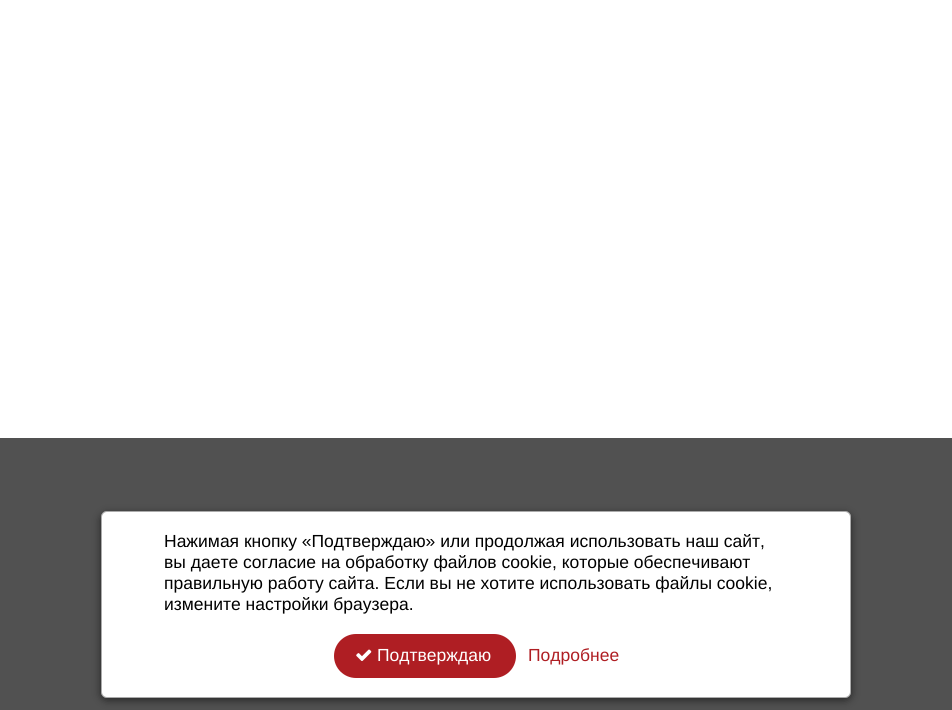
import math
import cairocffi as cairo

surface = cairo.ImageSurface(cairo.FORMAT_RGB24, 952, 710)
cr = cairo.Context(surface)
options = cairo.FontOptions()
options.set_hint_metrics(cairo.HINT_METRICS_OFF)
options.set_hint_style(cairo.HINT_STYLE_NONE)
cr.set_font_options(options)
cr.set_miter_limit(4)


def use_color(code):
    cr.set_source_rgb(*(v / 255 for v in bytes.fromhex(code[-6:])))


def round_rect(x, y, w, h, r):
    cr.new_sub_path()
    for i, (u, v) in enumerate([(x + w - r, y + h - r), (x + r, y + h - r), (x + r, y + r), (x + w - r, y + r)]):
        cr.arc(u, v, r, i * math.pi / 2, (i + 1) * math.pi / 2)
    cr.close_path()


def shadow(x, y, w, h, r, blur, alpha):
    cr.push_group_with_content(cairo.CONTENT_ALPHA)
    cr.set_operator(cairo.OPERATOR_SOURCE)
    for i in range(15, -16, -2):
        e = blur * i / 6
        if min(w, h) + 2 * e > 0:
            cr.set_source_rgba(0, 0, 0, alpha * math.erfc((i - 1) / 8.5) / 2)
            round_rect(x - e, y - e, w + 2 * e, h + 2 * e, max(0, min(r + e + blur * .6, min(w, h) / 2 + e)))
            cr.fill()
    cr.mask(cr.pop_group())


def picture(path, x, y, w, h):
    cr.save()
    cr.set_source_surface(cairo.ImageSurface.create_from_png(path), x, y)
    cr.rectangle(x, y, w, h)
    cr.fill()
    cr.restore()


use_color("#ffffff")
cr.paint()
use_color("#515151")
cr.rectangle(0, 438, 952, 272)
cr.fill()
use_color("#000000")
shadow(101, 514, 750, 186, 6, 4.5, 0.55)
use_color("#ffffff")
round_rect(101, 511, 750, 187, 6)
cr.fill()
round_rect(101.5, 511.5, 749, 186, 5.5)
cr.set_source_rgba(0, 0, 0, 0.33)
cr.set_line_width(1)
cr.stroke()
cr.select_font_face("Liberation Sans")
cr.set_font_size(17.5)
use_color("#000000")
cr.move_to(164, 547)
cr.show_text("Нажимая кнопку «Подтверждаю» или продолжая использовать наш сайт,")
cr.move_to(164, 568)
cr.show_text("вы даете согласие на обработку файлов cookie, которые обеспечивают")
cr.move_to(164, 589)
cr.show_text("правильную работу сайта. Если вы не хотите использовать файлы cookie,")
cr.move_to(164, 610)
cr.show_text("измените настройки браузера.")
use_color("#af1e23")
round_rect(334, 634, 182, 44, 22)
cr.fill()
picture("img1.png", 356, 649, 16, 12)
use_color("#ffffff")
cr.move_to(377, 661)
cr.show_text("Подтверждаю")
use_color("#af1e23")
cr.move_to(528, 661)
cr.show_text("Подробнее")
surface.write_to_png("result.png")
